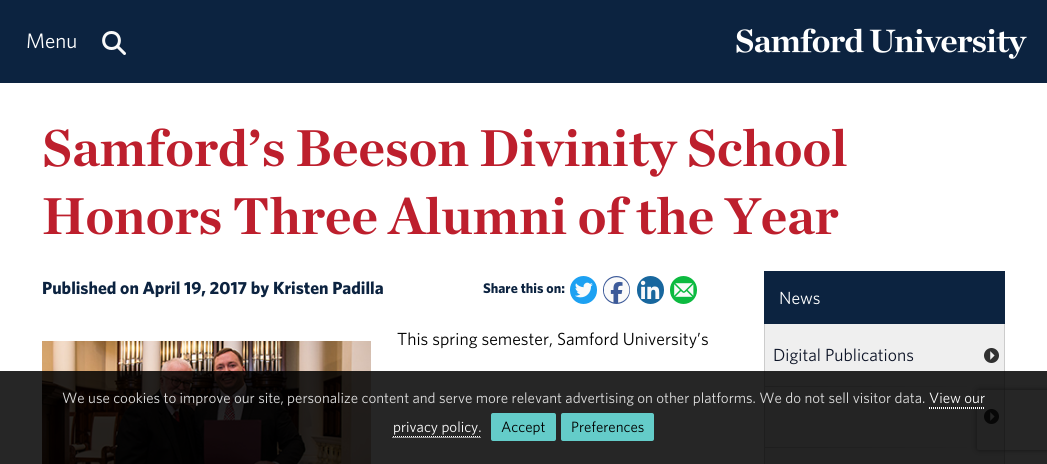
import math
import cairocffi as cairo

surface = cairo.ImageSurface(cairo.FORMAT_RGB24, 1047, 464)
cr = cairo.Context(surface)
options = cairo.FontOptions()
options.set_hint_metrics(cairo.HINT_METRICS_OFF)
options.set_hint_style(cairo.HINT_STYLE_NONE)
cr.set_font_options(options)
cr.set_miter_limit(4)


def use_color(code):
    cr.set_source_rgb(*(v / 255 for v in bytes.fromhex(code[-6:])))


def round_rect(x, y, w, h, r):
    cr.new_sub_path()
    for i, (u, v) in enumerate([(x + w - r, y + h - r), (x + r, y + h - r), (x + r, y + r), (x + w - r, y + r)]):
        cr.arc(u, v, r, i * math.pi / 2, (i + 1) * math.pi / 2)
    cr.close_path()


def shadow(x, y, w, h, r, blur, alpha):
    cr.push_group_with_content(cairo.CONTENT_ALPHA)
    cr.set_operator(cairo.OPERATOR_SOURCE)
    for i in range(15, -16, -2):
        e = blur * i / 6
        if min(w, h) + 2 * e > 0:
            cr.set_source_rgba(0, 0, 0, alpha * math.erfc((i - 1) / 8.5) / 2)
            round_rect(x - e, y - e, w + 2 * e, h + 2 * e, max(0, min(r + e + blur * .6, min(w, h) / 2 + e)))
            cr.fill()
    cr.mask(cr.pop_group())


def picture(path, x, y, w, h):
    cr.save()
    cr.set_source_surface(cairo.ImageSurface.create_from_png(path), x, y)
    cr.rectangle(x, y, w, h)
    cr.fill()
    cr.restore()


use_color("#ffffff")
cr.paint()
use_color("#0c2340")
cr.rectangle(0, 0, 1047, 83)
cr.fill()
cr.select_font_face("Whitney")
cr.set_font_size(21)
use_color("#ffffff")
cr.move_to(26, 48)
cr.show_text("Menu")
cr.new_path()
cr.move_to(111.5, 32.5)
cr.curve_to(122, 32.5, 122, 48.5, 111.5, 48.5)
cr.curve_to(101, 48.5, 101, 32.5, 111.5, 32.5)
cr.close_path()
cr.move_to(117.5, 46.5)
cr.line_to(124.5, 53.5)
cr.move_to(111.5, 32.5)
cr.curve_to(122, 32.5, 122, 48.5, 111.5, 48.5)
cr.curve_to(101, 48.5, 101, 32.5, 111.5, 32.5)
cr.close_path()
cr.move_to(117.5, 46.5)
cr.line_to(124.5, 53.5)
use_color("#fafafa")
cr.set_line_width(3)
cr.set_line_cap(cairo.LINE_CAP_ROUND)
cr.set_line_join(cairo.LINE_JOIN_ROUND)
cr.stroke()
picture("img1.png", 736, 28, 291, 31)
cr.select_font_face("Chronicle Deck", cairo.FONT_SLANT_NORMAL, cairo.FONT_WEIGHT_BOLD)
cr.set_font_size(52.75)
use_color("#bd1f2d")
cr.move_to(42, 166)
cr.show_text("Samford’s Beeson Divinity School")
cr.move_to(42, 234)
cr.show_text("Honors Three Alumni of the Year")
cr.select_font_face("Whitney", cairo.FONT_SLANT_NORMAL, cairo.FONT_WEIGHT_BOLD)
cr.set_font_size(17.6)
use_color("#0c2340")
cr.move_to(42, 294)
cr.show_text("Published on April 19, 2017 by Kristen Padilla")
cr.set_font_size(14)
cr.move_to(483, 293)
cr.show_text("Share this on:")
use_color("#1da1f2")
round_rect(570, 276, 27, 28, 13.5)
cr.fill()
picture("img2.png", 575, 282, 18, 16)
use_color("#3c5a99")
round_rect(603, 276, 27, 28, 13.5)
cr.fill()
picture("img3.png", 604, 277, 26, 26)
use_color("#18679e")
round_rect(637, 276, 27, 28, 13.5)
cr.fill()
picture("img4.png", 640, 280, 20, 19)
use_color("#0cba40")
round_rect(670, 276, 27, 28, 13.5)
cr.fill()
picture("img5.png", 674, 283, 20, 14)
picture("img6.png", 42, 340, 329, 124)
cr.select_font_face("Whitney")
cr.set_font_size(17.6)
use_color("#000000")
cr.move_to(397, 345)
cr.show_text("This spring semester, Samford University’s")
use_color("#efefef")
cr.rectangle(765, 324, 239, 140)
cr.fill()
use_color("#0c2340")
cr.rectangle(764, 271, 241, 53)
cr.fill()
use_color("#ffffff")
cr.move_to(779, 304)
cr.show_text("News")
use_color("#cccccc")
cr.rectangle(1004, 324, 1, 140)
cr.fill()
cr.rectangle(764, 324, 1, 140)
cr.fill()
picture("img7.png", 984, 348, 15, 15)
use_color("#0d1427")
cr.move_to(773, 361)
cr.show_text("Digital Publications")
picture("img8.png", 765, 386, 202, 1)
picture("img7.png", 984, 409, 15, 15)
picture("img8.png", 765, 447, 202, 1)
cr.save()
cr.set_fill_rule(cairo.FILL_RULE_EVEN_ODD)
cr.new_path()
cr.move_to(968, 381)
cr.line_to(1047, 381)
cr.line_to(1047, 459)
cr.line_to(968, 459)
cr.close_path()
cr.move_to(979, 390)
cr.line_to(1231, 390)
cr.curve_to(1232, 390, 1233, 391, 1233, 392)
cr.line_to(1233, 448)
cr.curve_to(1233, 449, 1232, 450, 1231, 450)
cr.line_to(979, 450)
cr.curve_to(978, 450, 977, 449, 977, 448)
cr.line_to(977, 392)
cr.curve_to(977, 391, 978, 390, 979, 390)
cr.close_path()
cr.clip()
use_color("#808080")
shadow(977, 390, 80, 60, 2, 2.5, 1)
cr.restore()
cr.set_source_rgba(0, 0, 0, 0.85)
cr.rectangle(0, 371, 1047, 93)
cr.fill()
cr.set_font_size(14.95)
use_color("#dddddd")
cr.move_to(62, 403)
cr.show_text("We use cookies to improve our site, personalize content and serve more relevant advertising on other platforms. We do not sell visitor data.")
use_color("#ffffff")
cr.move_to(929, 403)
cr.show_text("View our")
cr.new_path()
cr.move_to(929, 407.5)
cr.line_to(985, 407.5)
cr.set_line_width(1)
cr.set_line_cap(cairo.LINE_CAP_BUTT)
cr.set_line_join(cairo.LINE_JOIN_MITER)
cr.set_dash([1, 1])
cr.stroke()
cr.new_path()
cr.move_to(929, 408.5)
cr.line_to(985, 408.5)
cr.stroke()
cr.move_to(393, 432)
cr.show_text("privacy policy.")
cr.new_path()
cr.move_to(393, 436.5)
cr.line_to(481, 436.5)
cr.stroke()
cr.new_path()
cr.move_to(392.5, 437.5)
cr.line_to(481, 437.5)
cr.stroke()
use_color("#64ccc9")
round_rect(491, 413, 65, 28, 2)
cr.fill()
use_color("#000000")
cr.move_to(501, 432)
cr.show_text("Accept")
use_color("#64ccc9")
round_rect(561, 413, 93, 28, 2)
cr.fill()
use_color("#000000")
cr.move_to(571, 432)
cr.show_text("Preferences")
surface.write_to_png("result.png")
